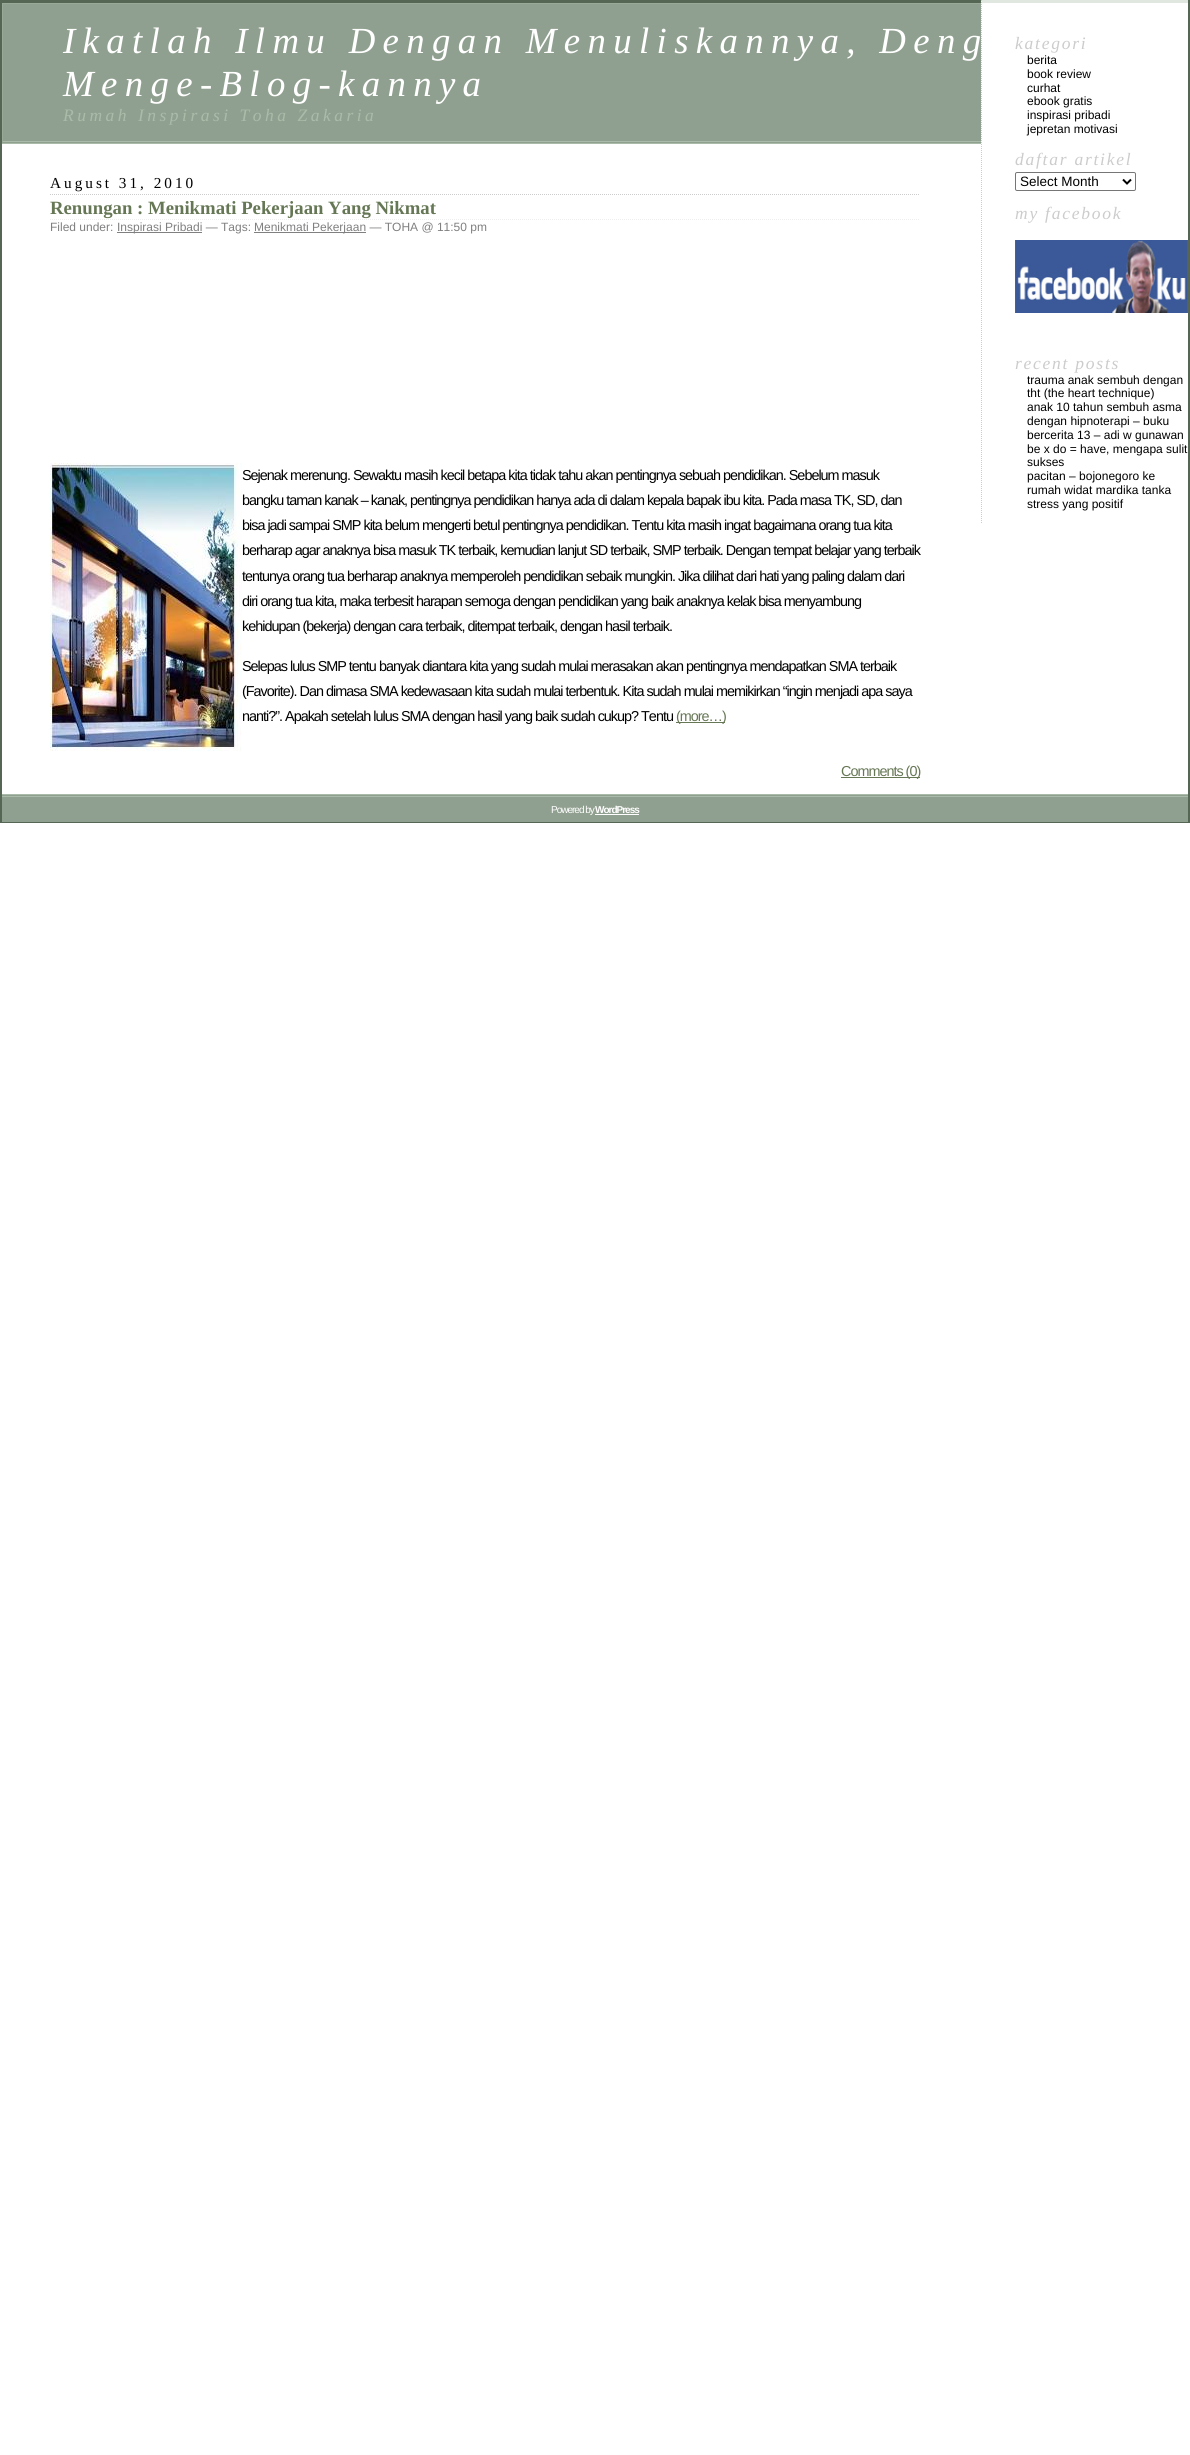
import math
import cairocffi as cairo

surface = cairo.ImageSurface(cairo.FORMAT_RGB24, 1190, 2455)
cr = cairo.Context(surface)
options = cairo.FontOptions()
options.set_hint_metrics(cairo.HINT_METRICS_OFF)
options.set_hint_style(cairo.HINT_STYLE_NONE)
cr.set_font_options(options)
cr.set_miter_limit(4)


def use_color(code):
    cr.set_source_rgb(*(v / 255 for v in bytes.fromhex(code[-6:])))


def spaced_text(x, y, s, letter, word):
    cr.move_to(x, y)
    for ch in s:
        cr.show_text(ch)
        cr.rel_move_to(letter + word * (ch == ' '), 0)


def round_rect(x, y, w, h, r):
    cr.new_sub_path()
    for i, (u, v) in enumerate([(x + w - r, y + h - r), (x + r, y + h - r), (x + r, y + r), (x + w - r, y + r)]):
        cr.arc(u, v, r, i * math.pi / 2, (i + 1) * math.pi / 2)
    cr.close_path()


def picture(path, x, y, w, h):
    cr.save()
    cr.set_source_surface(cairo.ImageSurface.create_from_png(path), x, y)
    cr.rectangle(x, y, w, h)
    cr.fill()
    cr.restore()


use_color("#ffffff")
cr.paint()
use_color("#556655")
cr.rectangle(0, 0, 981, 3)
cr.fill()
cr.rectangle(1188, 0, 2, 823)
cr.fill()
cr.rectangle(0, 822, 1190, 1)
cr.fill()
cr.rectangle(0, 0, 2, 823)
cr.fill()
use_color("#90a090")
cr.rectangle(2, 4, 979, 139)
cr.fill()
use_color("#99aa99")
cr.rectangle(2, 3, 979, 1)
cr.fill()
use_color("#aabbaa")
cr.rectangle(2, 141, 979, 1)
cr.fill()
cr.rectangle(2, 143, 979, 1)
cr.fill()
use_color("#99aa99")
cr.new_path()
cr.move_to(2, 144)
cr.line_to(2, 3)
cr.line_to(3, 4)
cr.line_to(3, 141)
cr.close_path()
cr.fill()
cr.select_font_face("Liberation Serif", cairo.FONT_SLANT_ITALIC)
cr.set_font_size(36.8)
use_color("#ffffff")
spaced_text(63, 53, "Ikatlah Ilmu Dengan Menuliskannya, Deng", 7.35, 0)
spaced_text(63, 96, "Menge-Blog-kannya", 7.35, 0)
cr.set_font_size(17.5)
use_color("#aabbaa")
spaced_text(63, 121, "Rumah Inspirasi Toha Zakaria", 3.5, 0)
use_color("#e0e6e0")
cr.new_path()
cr.move_to(981, 0)
cr.line_to(1188, 0)
cr.line_to(1188, 3)
cr.line_to(982, 3)
cr.close_path()
cr.fill()
cr.new_path()
cr.move_to(981.5, 0)
cr.line_to(981.5, 524)
use_color("#cccccc")
cr.set_line_width(1)
cr.set_dash([1, 1])
cr.stroke()
spaced_text(1015, 49, "kategori", 1.75, 0)
cr.select_font_face("Liberation Sans")
cr.set_font_size(12)
use_color("#000000")
cr.move_to(1027, 64)
cr.show_text("berita")
cr.move_to(1027, 78)
cr.show_text("book review")
cr.move_to(1027, 92)
cr.show_text("curhat")
cr.move_to(1027, 105)
cr.show_text("ebook gratis")
cr.move_to(1027, 119)
cr.show_text("inspirasi pribadi")
cr.move_to(1027, 133)
cr.show_text("jepretan motivasi")
cr.select_font_face("Liberation Serif", cairo.FONT_SLANT_ITALIC)
cr.set_font_size(17.5)
use_color("#cccccc")
spaced_text(1015, 165, "daftar artikel", 1.75, 0)
round_rect(1015.5, 172.5, 120, 18, 1.5)
use_color("#767676")
cr.set_dash([])
cr.stroke()
cr.new_path()
cr.move_to(1123, 179.5)
cr.line_to(1127, 183.5)
cr.line_to(1131, 179.5)
use_color("#000000")
cr.set_line_width(2)
cr.stroke()
cr.select_font_face("Liberation Sans")
cr.set_font_size(13.5)
cr.move_to(1020, 186)
cr.show_text("Select Month")
cr.select_font_face("Liberation Serif", cairo.FONT_SLANT_ITALIC)
cr.set_font_size(17.5)
use_color("#cccccc")
spaced_text(1015, 219, "my facebook", 1.75, 0)
picture("img1.png", 1015, 240, 173, 73)
spaced_text(1015, 369, "recent posts", 1.75, 0)
cr.select_font_face("Liberation Sans")
cr.set_font_size(12)
use_color("#000000")
cr.move_to(1027, 384)
cr.show_text("trauma anak sembuh dengan")
cr.move_to(1027, 397)
cr.show_text("tht (the heart technique)")
cr.move_to(1027, 411)
cr.show_text("anak 10 tahun sembuh asma")
cr.move_to(1027, 425)
cr.show_text("dengan hipnoterapi – buku")
cr.move_to(1027, 439)
cr.show_text("bercerita 13 – adi w gunawan")
cr.move_to(1027, 453)
cr.show_text("be x do = have, mengapa sulit")
cr.move_to(1027, 466)
cr.show_text("sukses")
cr.move_to(1027, 480)
cr.show_text("pacitan – bojonegoro ke")
cr.move_to(1027, 494)
cr.show_text("rumah widat mardika tanka")
cr.move_to(1027, 508)
cr.show_text("stress yang positif")
cr.new_path()
cr.move_to(50, 194.5)
cr.line_to(920, 194.5)
use_color("#cccccc")
cr.set_line_width(1)
cr.set_dash([1, 1])
cr.stroke()
cr.select_font_face("Liberation Serif")
cr.set_font_size(15.25)
use_color("#000000")
spaced_text(50, 188, "August 31, 2010", 3, 0)
cr.new_path()
cr.move_to(50, 219.5)
cr.line_to(920, 219.5)
use_color("#eeeeee")
cr.stroke()
cr.select_font_face("Liberation Serif", cairo.FONT_SLANT_NORMAL, cairo.FONT_WEIGHT_BOLD)
cr.set_font_size(18.75)
use_color("#667755")
cr.move_to(50, 214)
cr.show_text("Renungan : Menikmati Pekerjaan Yang Nikmat")
cr.select_font_face("Liberation Sans")
cr.set_font_size(12)
use_color("#808080")
cr.move_to(50, 231)
cr.show_text("Filed under:")
cr.rectangle(117, 232, 85, 1)
cr.fill()
cr.move_to(117, 231)
cr.show_text("Inspirasi Pribadi — Tags:")
cr.rectangle(254, 232, 112, 1)
cr.fill()
cr.move_to(254, 231)
cr.show_text("Menikmati Pekerjaan — TOHA @ 11:50 pm")
picture("img2.png", 50, 463, 192, 288)
cr.set_font_size(14.4)
use_color("#000000")
spaced_text(242, 480, "Sejenak merenung. Sewaktu masih kecil betapa kita tidak tahu akan pentingnya sebuah pendidikan. Sebelum masuk", -1, 0)
spaced_text(242, 505, "bangku taman kanak – kanak, pentingnya pendidikan hanya ada di dalam kepala bapak ibu kita. Pada masa TK, SD, dan", -1, 0)
spaced_text(242, 530, "bisa jadi sampai SMP kita belum mengerti betul pentingnya pendidikan. Tentu kita masih ingat bagaimana orang tua kita", -1, 0)
spaced_text(242, 555, "berharap agar anaknya bisa masuk TK terbaik, kemudian lanjut SD terbaik, SMP terbaik. Dengan tempat belajar yang terbaik", -1, 0)
spaced_text(242, 581, "tentunya orang tua berharap anaknya memperoleh pendidikan sebaik mungkin. Jika dilihat dari hati yang paling dalam dari", -1, 0)
spaced_text(242, 606, "diri orang tua kita, maka terbesit harapan semoga dengan pendidikan yang baik anaknya kelak bisa menyambung", -1, 0)
spaced_text(242, 631, "kehidupan (bekerja) dengan cara terbaik, ditempat terbaik, dengan hasil terbaik.", -1, 0)
spaced_text(242, 671, "Selepas lulus SMP tentu banyak diantara kita yang sudah mulai merasakan akan pentingnya mendapatkan SMA terbaik", -1, 0)
spaced_text(242, 696, "(Favorite). Dan dimasa SMA kedewasaan kita sudah mulai terbentuk. Kita sudah mulai memikirkan “ingin menjadi apa saya", -1, 0)
spaced_text(242, 721, "nanti?”. Apakah setelah lulus SMA dengan hasil yang baik sudah cukup? Tentu", -1, 0)
use_color("#667755")
cr.rectangle(676, 722, 49, 1)
cr.fill()
spaced_text(676, 721, "(more…)", -1, 0)
cr.rectangle(841, 777, 79, 1)
cr.fill()
spaced_text(841, 776, "Comments (0)", -1, 0)
use_color("#90a090")
cr.rectangle(2, 795, 1186, 27)
cr.fill()
use_color("#aabbaa")
cr.rectangle(2, 794, 1186, 1)
cr.fill()
cr.rectangle(2, 796, 1186, 1)
cr.fill()
cr.set_font_size(10)
use_color("#ffffff")
spaced_text(551, 813, "Powered by", -1, 0)
cr.rectangle(595, 814, 44, 1)
cr.fill()
cr.select_font_face("Liberation Sans", cairo.FONT_SLANT_NORMAL, cairo.FONT_WEIGHT_BOLD)
spaced_text(595, 813, "WordPress", -1, 0)
surface.write_to_png("result.png")
